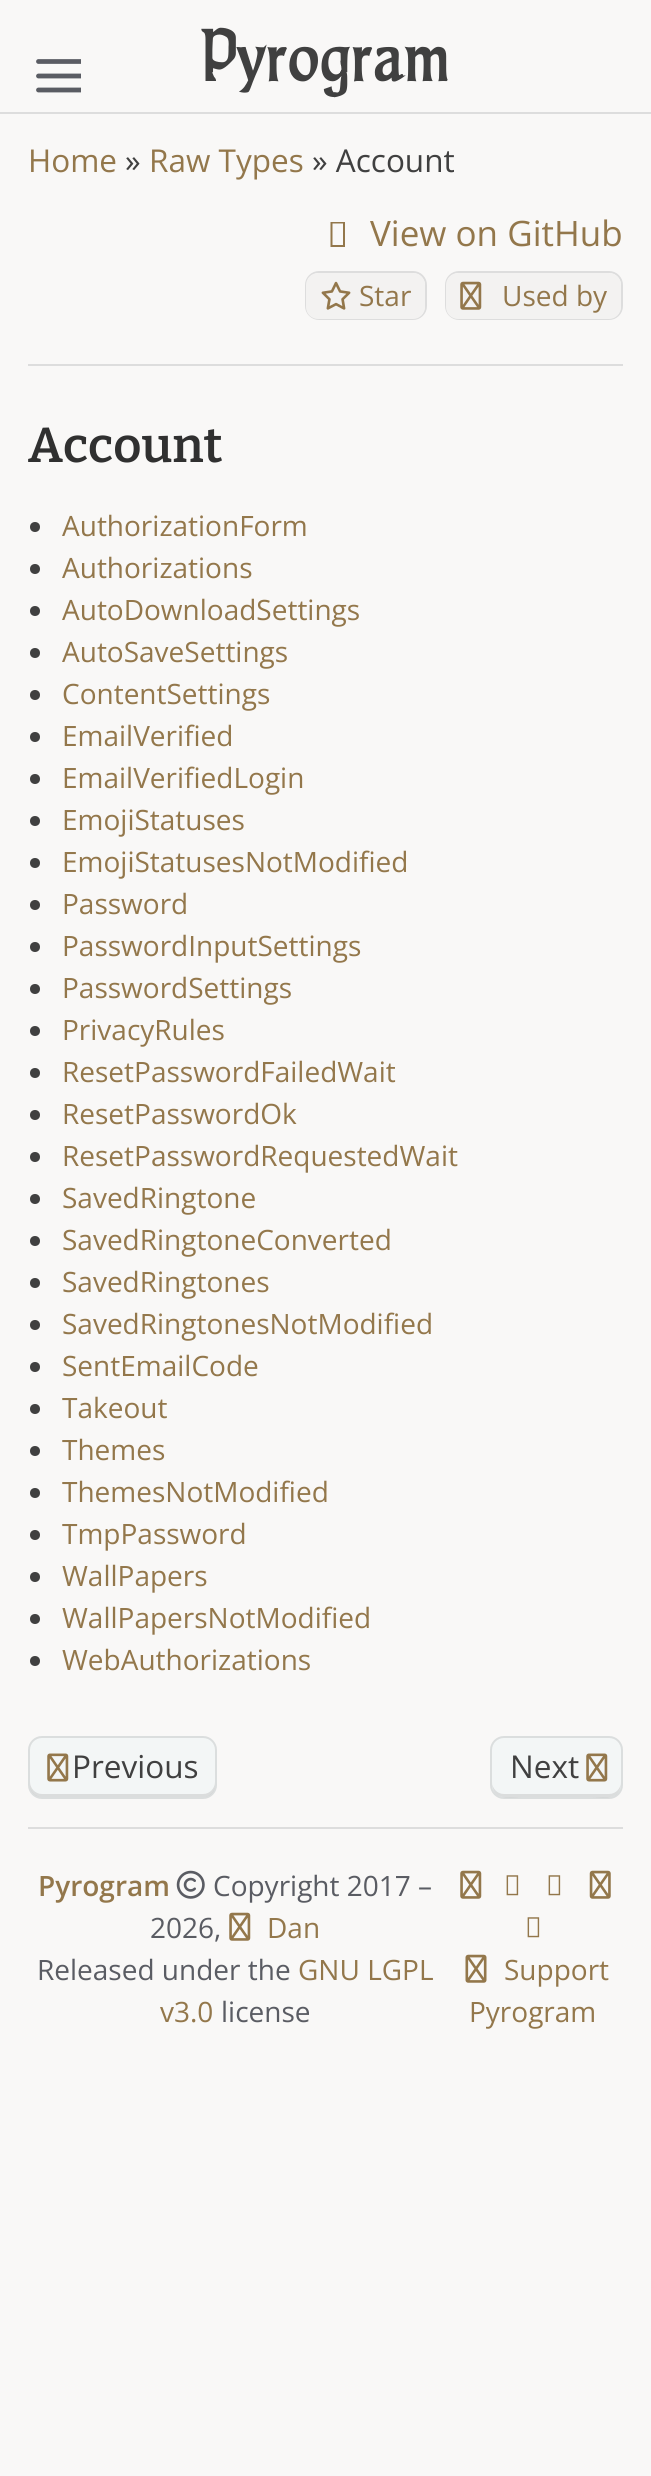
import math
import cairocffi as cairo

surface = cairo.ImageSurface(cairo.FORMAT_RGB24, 651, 2476)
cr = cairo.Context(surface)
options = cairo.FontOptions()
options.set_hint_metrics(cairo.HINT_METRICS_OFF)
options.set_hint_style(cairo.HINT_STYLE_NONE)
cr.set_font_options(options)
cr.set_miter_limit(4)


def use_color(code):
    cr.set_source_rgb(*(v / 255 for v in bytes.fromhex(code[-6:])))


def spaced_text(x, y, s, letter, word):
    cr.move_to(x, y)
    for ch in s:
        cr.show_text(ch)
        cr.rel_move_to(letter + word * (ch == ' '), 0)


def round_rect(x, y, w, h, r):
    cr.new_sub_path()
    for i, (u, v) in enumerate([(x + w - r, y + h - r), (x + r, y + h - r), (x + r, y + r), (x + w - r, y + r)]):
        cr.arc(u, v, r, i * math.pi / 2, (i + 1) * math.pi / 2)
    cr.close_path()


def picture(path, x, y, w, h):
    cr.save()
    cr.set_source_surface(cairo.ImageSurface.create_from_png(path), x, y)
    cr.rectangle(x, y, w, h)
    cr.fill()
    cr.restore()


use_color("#f9f8f7")
cr.paint()
use_color("#dddddd")
cr.rectangle(0, 112, 651, 2)
cr.fill()
cr.save()
cr.rectangle(32, 47, 49, 49)
cr.clip()
cr.new_path()
cr.move_to(38.5, 76)
cr.line_to(81.5, 76)
cr.move_to(38.5, 61.5)
cr.line_to(81.5, 61.5)
cr.move_to(38.5, 90)
cr.line_to(81.5, 90)
use_color("#5a5c63")
cr.set_line_width(4.8)
cr.set_line_cap(cairo.LINE_CAP_ROUND)
cr.set_line_join(cairo.LINE_JOIN_ROUND)
cr.stroke()
cr.restore()
cr.select_font_face("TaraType", cairo.FONT_SLANT_NORMAL, cairo.FONT_WEIGHT_BOLD)
cr.set_font_size(66.5)
use_color("#404040")
spaced_text(200, 81, "Pyrogram", 2.75, 0)
cr.select_font_face("Open Sans")
cr.set_font_size(31.5)
use_color("#93774b")
cr.move_to(28, 172)
cr.show_text("Home")
use_color("#404040")
cr.move_to(125, 172)
cr.show_text("»")
use_color("#93774b")
cr.move_to(149, 172)
cr.show_text("Raw Types")
use_color("#404040")
cr.move_to(312, 172)
cr.show_text("» Account")
use_color("#93774b")
cr.new_path()
cr.move_to(330.5, 247)
cr.line_to(330.5, 222)
cr.line_to(345, 222)
cr.line_to(345, 247)
cr.close_path()
cr.move_to(332.5, 245)
cr.line_to(343, 245)
cr.line_to(343, 223.5)
cr.line_to(332.5, 223.5)
cr.close_path()
cr.fill()
cr.set_font_size(35)
cr.move_to(370, 246)
cr.show_text("View on GitHub")
round_rect(306, 272, 120, 47, 13)
use_color("#dddddd")
cr.stroke()
use_color("#f3f2f1")
round_rect(306, 273, 119, 46, 12)
cr.fill()
picture("img1.png", 321, 281, 30, 29)
cr.set_font_size(28)
use_color("#93774b")
cr.move_to(359, 306)
cr.show_text("Star")
round_rect(446, 272, 176, 47, 13)
use_color("#dddddd")
cr.stroke()
use_color("#f3f2f1")
round_rect(446, 273, 175, 46, 12)
cr.fill()
picture("img2.png", 460, 281, 22, 29)
use_color("#93774b")
cr.move_to(502, 306)
cr.show_text("Used by")
use_color("#dddddd")
cr.rectangle(28, 364, 595, 2)
cr.fill()
cr.select_font_face("Bitter SemiBold")
cr.set_font_size(49)
use_color("#303030")
cr.move_to(28, 462)
cr.show_text("Account")
use_color("#404040")
cr.new_path()
cr.arc(35, 527, 5, 0, 2 * math.pi)
cr.fill()
cr.select_font_face("Open Sans")
cr.set_font_size(28)
use_color("#93774b")
cr.move_to(62, 536)
cr.show_text("AuthorizationForm")
use_color("#404040")
cr.new_path()
cr.arc(35, 569, 5, 0, 2 * math.pi)
cr.fill()
use_color("#93774b")
cr.move_to(62, 578)
cr.show_text("Authorizations")
use_color("#404040")
cr.new_path()
cr.arc(35, 611, 5, 0, 2 * math.pi)
cr.fill()
use_color("#93774b")
cr.move_to(62, 620)
cr.show_text("AutoDownloadSettings")
use_color("#404040")
cr.new_path()
cr.arc(35, 653, 5, 0, 2 * math.pi)
cr.fill()
use_color("#93774b")
cr.move_to(62, 662)
cr.show_text("AutoSaveSettings")
use_color("#404040")
cr.new_path()
cr.arc(35, 695, 5, 0, 2 * math.pi)
cr.fill()
use_color("#93774b")
cr.move_to(62, 704)
cr.show_text("ContentSettings")
use_color("#404040")
cr.new_path()
cr.arc(35, 737, 5, 0, 2 * math.pi)
cr.fill()
use_color("#93774b")
cr.move_to(62, 746)
cr.show_text("EmailVerified")
use_color("#404040")
cr.new_path()
cr.arc(35, 779, 5, 0, 2 * math.pi)
cr.fill()
use_color("#93774b")
cr.move_to(62, 788)
cr.show_text("EmailVerifiedLogin")
use_color("#404040")
cr.new_path()
cr.arc(35, 821, 5, 0, 2 * math.pi)
cr.fill()
use_color("#93774b")
cr.move_to(62, 830)
cr.show_text("EmojiStatuses")
use_color("#404040")
cr.new_path()
cr.arc(35, 863, 5, 0, 2 * math.pi)
cr.fill()
use_color("#93774b")
cr.move_to(62, 872)
cr.show_text("EmojiStatusesNotModified")
use_color("#404040")
cr.new_path()
cr.arc(35, 905, 5, 0, 2 * math.pi)
cr.fill()
use_color("#93774b")
cr.move_to(62, 914)
cr.show_text("Password")
use_color("#404040")
cr.new_path()
cr.arc(35, 947, 5, 0, 2 * math.pi)
cr.fill()
use_color("#93774b")
cr.move_to(62, 956)
cr.show_text("PasswordInputSettings")
use_color("#404040")
cr.new_path()
cr.arc(35, 989, 5, 0, 2 * math.pi)
cr.fill()
use_color("#93774b")
cr.move_to(62, 998)
cr.show_text("PasswordSettings")
use_color("#404040")
cr.new_path()
cr.arc(35, 1031, 5, 0, 2 * math.pi)
cr.fill()
use_color("#93774b")
cr.move_to(62, 1040)
cr.show_text("PrivacyRules")
use_color("#404040")
cr.new_path()
cr.arc(35, 1073, 5, 0, 2 * math.pi)
cr.fill()
use_color("#93774b")
cr.move_to(62, 1082)
cr.show_text("ResetPasswordFailedWait")
use_color("#404040")
cr.new_path()
cr.arc(35, 1115, 5, 0, 2 * math.pi)
cr.fill()
use_color("#93774b")
cr.move_to(62, 1124)
cr.show_text("ResetPasswordOk")
use_color("#404040")
cr.new_path()
cr.arc(35, 1157, 5, 0, 2 * math.pi)
cr.fill()
use_color("#93774b")
cr.move_to(62, 1166)
cr.show_text("ResetPasswordRequestedWait")
use_color("#404040")
cr.new_path()
cr.arc(35, 1199, 5, 0, 2 * math.pi)
cr.fill()
use_color("#93774b")
cr.move_to(62, 1208)
cr.show_text("SavedRingtone")
use_color("#404040")
cr.new_path()
cr.arc(35, 1241, 5, 0, 2 * math.pi)
cr.fill()
use_color("#93774b")
cr.move_to(62, 1250)
cr.show_text("SavedRingtoneConverted")
use_color("#404040")
cr.new_path()
cr.arc(35, 1283, 5, 0, 2 * math.pi)
cr.fill()
use_color("#93774b")
cr.move_to(62, 1292)
cr.show_text("SavedRingtones")
use_color("#404040")
cr.new_path()
cr.arc(35, 1325, 5, 0, 2 * math.pi)
cr.fill()
use_color("#93774b")
cr.move_to(62, 1334)
cr.show_text("SavedRingtonesNotModified")
use_color("#404040")
cr.new_path()
cr.arc(35, 1367, 5, 0, 2 * math.pi)
cr.fill()
use_color("#93774b")
cr.move_to(62, 1376)
cr.show_text("SentEmailCode")
use_color("#404040")
cr.new_path()
cr.arc(35, 1409, 5, 0, 2 * math.pi)
cr.fill()
use_color("#93774b")
cr.move_to(62, 1418)
cr.show_text("Takeout")
use_color("#404040")
cr.new_path()
cr.arc(35, 1451, 5, 0, 2 * math.pi)
cr.fill()
use_color("#93774b")
cr.move_to(62, 1460)
cr.show_text("Themes")
use_color("#404040")
cr.new_path()
cr.arc(35, 1493, 5, 0, 2 * math.pi)
cr.fill()
use_color("#93774b")
cr.move_to(62, 1502)
cr.show_text("ThemesNotModified")
use_color("#404040")
cr.new_path()
cr.arc(35, 1535, 5, 0, 2 * math.pi)
cr.fill()
use_color("#93774b")
cr.move_to(62, 1544)
cr.show_text("TmpPassword")
use_color("#404040")
cr.new_path()
cr.arc(35, 1577, 5, 0, 2 * math.pi)
cr.fill()
use_color("#93774b")
cr.move_to(62, 1586)
cr.show_text("WallPapers")
use_color("#404040")
cr.new_path()
cr.arc(35, 1619, 5, 0, 2 * math.pi)
cr.fill()
use_color("#93774b")
cr.move_to(62, 1628)
cr.show_text("WallPapersNotModified")
use_color("#404040")
cr.new_path()
cr.arc(35, 1661, 5, 0, 2 * math.pi)
cr.fill()
use_color("#93774b")
cr.move_to(62, 1670)
cr.show_text("WebAuthorizations")
use_color("#f3f6f6")
round_rect(28, 1736, 189, 63, 14)
cr.fill()
use_color("#dbdddd")
cr.new_path()
cr.move_to(30, 1782)
cr.line_to(30, 1785)
cr.curve_to(30, 1792, 35, 1797, 42, 1797)
cr.line_to(203, 1797)
cr.curve_to(210, 1797, 215, 1792, 215, 1785)
cr.line_to(215, 1782)
cr.curve_to(215, 1788, 210, 1794, 203, 1794)
cr.line_to(42, 1794)
cr.curve_to(35, 1794, 30, 1788, 30, 1782)
cr.close_path()
cr.fill()
round_rect(29, 1737, 187, 61, 13)
cr.set_source_rgba(0, 0, 0, 0.1)
cr.stroke()
picture("img3.png", 47, 1753, 22, 29)
cr.set_font_size(31.5)
use_color("#404040")
cr.move_to(72, 1778)
cr.show_text("Previous")
use_color("#f3f6f6")
round_rect(490, 1736, 133, 63, 14)
cr.fill()
use_color("#dbdddd")
cr.new_path()
cr.move_to(492, 1782)
cr.curve_to(492, 1801, 507, 1797, 522, 1797)
cr.line_to(592, 1797)
cr.curve_to(606, 1797, 621, 1801, 621, 1782)
cr.curve_to(621, 1788, 616, 1794, 609, 1794)
cr.line_to(504, 1794)
cr.curve_to(497, 1794, 492, 1788, 492, 1782)
cr.close_path()
cr.fill()
round_rect(491, 1737, 131, 61, 13)
cr.set_source_rgba(0, 0, 0, 0.1)
cr.stroke()
use_color("#404040")
cr.move_to(510, 1778)
cr.show_text("Next")
picture("img3.png", 586, 1753, 22, 29)
use_color("#dddddd")
cr.rectangle(28, 1827, 595, 2)
cr.fill()
cr.select_font_face("Open Sans SemiBold")
cr.set_font_size(28)
use_color("#93774b")
cr.move_to(38, 1896)
cr.show_text("Pyrogram")
picture("img4.png", 176, 1870, 29, 29)
cr.select_font_face("Open Sans")
use_color("#5a5c63")
cr.move_to(213, 1896)
cr.show_text("Copyright 2017 –")
cr.move_to(150, 1938)
cr.show_text("2026,")
picture("img5.png", 229, 1912, 22, 29)
use_color("#93774b")
cr.move_to(267, 1938)
cr.show_text("Dan")
use_color("#5a5c63")
cr.move_to(37, 1980)
cr.show_text("Released under the")
use_color("#93774b")
cr.move_to(298, 1980)
cr.show_text("GNU LGPL")
cr.move_to(160, 2022)
cr.show_text("v3.0")
use_color("#5a5c63")
cr.move_to(221, 2022)
cr.show_text("license")
picture("img5.png", 460, 1870, 22, 29)
picture("img6.png", 506, 1875, 13, 21)
picture("img6.png", 548, 1875, 13, 21)
picture("img7.png", 589, 1870, 22, 29)
picture("img6.png", 527, 1917, 13, 21)
picture("img8.png", 465, 1954, 22, 29)
use_color("#93774b")
cr.move_to(504, 1980)
cr.show_text("Support")
cr.move_to(469, 2022)
cr.show_text("Pyrogram")
surface.write_to_png("result.png")
